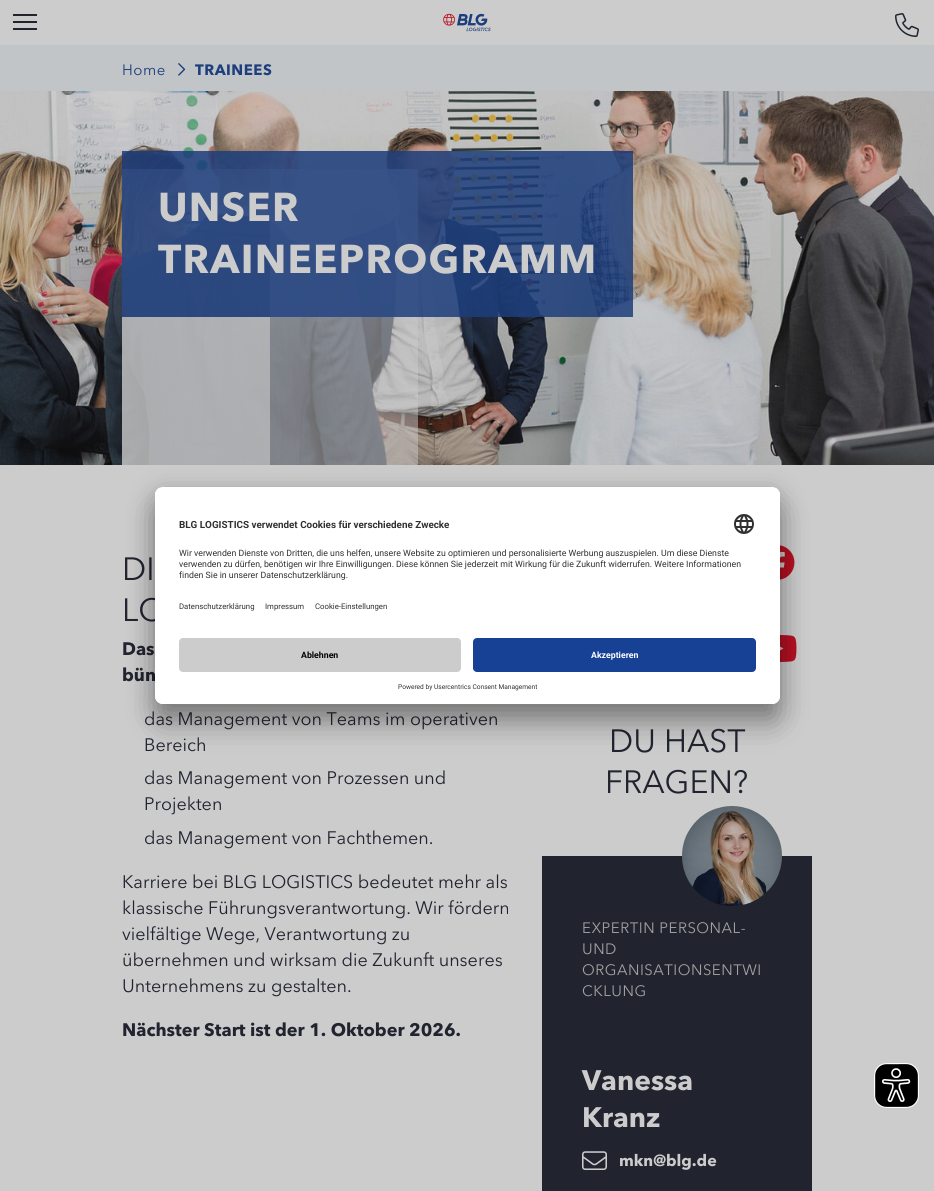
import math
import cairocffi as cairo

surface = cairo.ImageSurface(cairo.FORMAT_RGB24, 934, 1191)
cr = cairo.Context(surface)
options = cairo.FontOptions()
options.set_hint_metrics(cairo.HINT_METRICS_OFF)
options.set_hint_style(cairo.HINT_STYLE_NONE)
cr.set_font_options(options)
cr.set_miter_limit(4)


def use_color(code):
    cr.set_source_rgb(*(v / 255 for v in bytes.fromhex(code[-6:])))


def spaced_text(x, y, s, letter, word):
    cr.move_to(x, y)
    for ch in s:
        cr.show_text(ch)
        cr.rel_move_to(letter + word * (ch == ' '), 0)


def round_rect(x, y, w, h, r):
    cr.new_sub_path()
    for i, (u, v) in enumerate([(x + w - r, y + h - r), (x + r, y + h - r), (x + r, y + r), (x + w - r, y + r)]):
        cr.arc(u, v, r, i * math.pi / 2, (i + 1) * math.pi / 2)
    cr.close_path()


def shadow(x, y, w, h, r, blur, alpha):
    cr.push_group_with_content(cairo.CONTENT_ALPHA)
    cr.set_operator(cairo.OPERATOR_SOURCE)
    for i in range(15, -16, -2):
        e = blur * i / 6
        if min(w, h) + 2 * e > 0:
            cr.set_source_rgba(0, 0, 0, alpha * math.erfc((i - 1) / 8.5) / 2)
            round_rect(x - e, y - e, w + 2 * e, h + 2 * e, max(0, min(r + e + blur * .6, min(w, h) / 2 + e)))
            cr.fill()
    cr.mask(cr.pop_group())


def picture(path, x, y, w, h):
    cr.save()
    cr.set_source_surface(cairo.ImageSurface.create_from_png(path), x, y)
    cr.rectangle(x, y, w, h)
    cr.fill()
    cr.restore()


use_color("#cccccc")
cr.paint()
use_color("#21232f")
cr.rectangle(13, 28, 24, 2)
cr.fill()
cr.rectangle(13, 14, 24, 2)
cr.fill()
cr.rectangle(13, 21, 24, 2)
cr.fill()
picture("img1.png", 443, 13, 48, 19)
picture("img2.png", 895, 13, 24, 24)
use_color("#c2c5c8")
cr.rectangle(0, 45, 934, 46)
cr.fill()
cr.select_font_face("Avenir Next")
cr.set_font_size(15)
use_color("#1d3e7c")
spaced_text(122, 75, "Home", 0.5, 0)
picture("img3.png", 178, 63, 8, 13)
cr.select_font_face("Avenir Next", cairo.FONT_SLANT_NORMAL, cairo.FONT_WEIGHT_BOLD)
spaced_text(195, 75, "TRAINEES", 0.5, 0)
picture("img4.png", 0, 91, 934, 374)
cr.set_source_rgba(0.8, 0.8, 0.8, 0.5)
cr.rectangle(122, 169, 148, 148)
cr.fill()
cr.set_source_rgba(0.8, 0.8, 0.8, 0.8)
cr.rectangle(270, 169, 148, 148)
cr.fill()
cr.rectangle(122, 317, 148, 148)
cr.fill()
cr.set_source_rgba(0.8, 0.8, 0.8, 0.5)
cr.rectangle(270, 317, 148, 148)
cr.fill()
cr.set_source_rgba(0.114, 0.243, 0.486, 0.85)
cr.rectangle(122, 151, 511, 166)
cr.fill()
cr.set_font_size(40)
use_color("#cccccc")
spaced_text(158, 221, "UNSER", 1.25, 0)
spaced_text(158, 273, "TRAINEEPROGRAMM", 1.25, 0)
cr.select_font_face("Avenir Next")
cr.set_font_size(32)
use_color("#21232f")
cr.move_to(122, 580)
cr.show_text("DI")
cr.move_to(122, 621)
cr.show_text("LO")
cr.select_font_face("Avenir Next", cairo.FONT_SLANT_NORMAL, cairo.FONT_WEIGHT_BOLD)
cr.set_font_size(18)
cr.move_to(122, 655)
cr.show_text("Das")
cr.move_to(122, 681)
cr.show_text("bün")
cr.select_font_face("Avenir Next")
cr.move_to(144, 725)
cr.show_text("das Management von Teams im operativen")
cr.move_to(144, 751)
cr.show_text("Bereich")
cr.move_to(144, 784)
cr.show_text("das Management von Prozessen und")
cr.move_to(144, 810)
cr.show_text("Projekten")
cr.move_to(144, 844)
cr.show_text("das Management von Fachthemen.")
cr.move_to(122, 888)
cr.show_text("Karriere bei BLG LOGISTICS bedeutet mehr als")
cr.move_to(122, 914)
cr.show_text("klassische Führungsverantwortung. Wir fördern")
cr.move_to(122, 940)
cr.show_text("vielfältige Wege, Verantwortung zu")
cr.move_to(122, 966)
cr.show_text("übernehmen und wirksam die Zukunft unseres")
cr.move_to(122, 992)
cr.show_text("Unternehmens zu gestalten.")
cr.select_font_face("Avenir Next", cairo.FONT_SLANT_NORMAL, cairo.FONT_WEIGHT_BOLD)
cr.move_to(122, 1036)
cr.show_text("Nächster Start ist der 1. Oktober 2026.")
picture("img5.png", 780, 545, 15, 35)
picture("img6.png", 780, 635, 17, 27)
cr.select_font_face("Avenir Next")
cr.set_font_size(32)
cr.move_to(609, 752)
cr.show_text("DU HAST")
cr.move_to(605, 793)
cr.show_text("FRAGEN?")
cr.rectangle(542, 856, 270, 335)
cr.fill()
picture("img7.png", 682, 806, 100, 100)
cr.set_font_size(15)
use_color("#a1a1a1")
spaced_text(582, 933, "EXPERTIN PERSONAL-", 0.5, 0)
spaced_text(582, 954, "UND", 0.5, 0)
spaced_text(582, 975, "ORGANISATIONSENTWI", 0.5, 0)
spaced_text(582, 996, "CKLUNG", 0.5, 0)
cr.select_font_face("Avenir Next", cairo.FONT_SLANT_NORMAL, cairo.FONT_WEIGHT_BOLD)
cr.set_font_size(28)
use_color("#cccccc")
cr.move_to(582, 1090)
cr.show_text("Vanessa")
cr.move_to(582, 1127)
cr.show_text("Kranz")
picture("img8.png", 582, 1151, 25, 19)
cr.set_font_size(16)
cr.move_to(619, 1166)
cr.show_text("mkn@blg.de")
use_color("#000000")
shadow(155, 507, 625, 217, 8, 14, 0.3)
shadow(155, 492, 625, 217, 8, 13, 0.22)
use_color("#ffffff")
round_rect(155, 487, 625, 217, 8)
cr.fill()
cr.save()
round_rect(155, 487, 625, 217, 8)
cr.clip()
cr.new_path()
cr.move_to(163, 487)
cr.line_to(772, 487)
cr.curve_to(776.5, 487, 780, 490.5, 780, 495)
cr.line_to(780, 630)
cr.line_to(155, 630)
cr.line_to(155, 495)
cr.curve_to(155, 490.5, 158.5, 487, 163, 487)
cr.close_path()
cr.clip()
cr.rectangle(155, 488, 625, 142)
cr.fill()
cr.restore()
cr.select_font_face("Roboto", cairo.FONT_SLANT_NORMAL, cairo.FONT_WEIGHT_BOLD)
cr.set_font_size(9.85)
use_color("#303030")
cr.move_to(179, 528)
cr.show_text("BLG LOGISTICS verwendet Cookies für verschiedene Zwecke")
picture("img9.png", 734, 514, 20, 20)
cr.select_font_face("Roboto")
cr.set_font_size(8.75)
cr.move_to(179, 556)
cr.show_text("Wir verwenden Dienste von Dritten, die uns helfen, unsere Website zu optimieren und personalisierte Werbung auszuspielen. Um diese Dienste")
cr.move_to(179, 567)
cr.show_text("verwenden zu dürfen, benötigen wir Ihre Einwilligungen. Diese können Sie jederzeit mit Wirkung für die Zukunft widerrufen. Weitere Informationen")
cr.move_to(179, 578)
cr.show_text("finden Sie in unserer Datenschutzerklärung.")
cr.set_font_size(7.75)
cr.move_to(179, 609)
cr.show_text("Datenschutzerklärung")
cr.move_to(265, 609)
cr.show_text("Impressum")
cr.move_to(315, 609)
cr.show_text("Cookie-Einstellungen")
use_color("#ffffff")
cr.new_path()
cr.move_to(155, 630)
cr.line_to(780, 630)
cr.line_to(780, 696)
cr.curve_to(780, 700.5, 776.5, 704, 772, 704)
cr.line_to(163, 704)
cr.curve_to(158.5, 704, 155, 700.5, 155, 696)
cr.close_path()
cr.fill()
use_color("#cccccc")
round_rect(179, 638, 282, 34, 4)
cr.fill()
cr.select_font_face("Roboto", cairo.FONT_SLANT_NORMAL, cairo.FONT_WEIGHT_BOLD)
cr.set_font_size(8.75)
use_color("#000000")
cr.move_to(301, 658)
cr.show_text("Ablehnen")
use_color("#164194")
round_rect(473, 638, 283, 34, 4)
cr.fill()
use_color("#ffffff")
cr.move_to(591, 658)
cr.show_text("Akzeptieren")
cr.select_font_face("Roboto")
cr.set_font_size(6.6)
use_color("#303030")
cr.move_to(398, 689)
cr.show_text("Powered by Usercentrics Consent Management")
picture("img10.png", 874, 1063, 45, 45)
surface.write_to_png("result.png")
